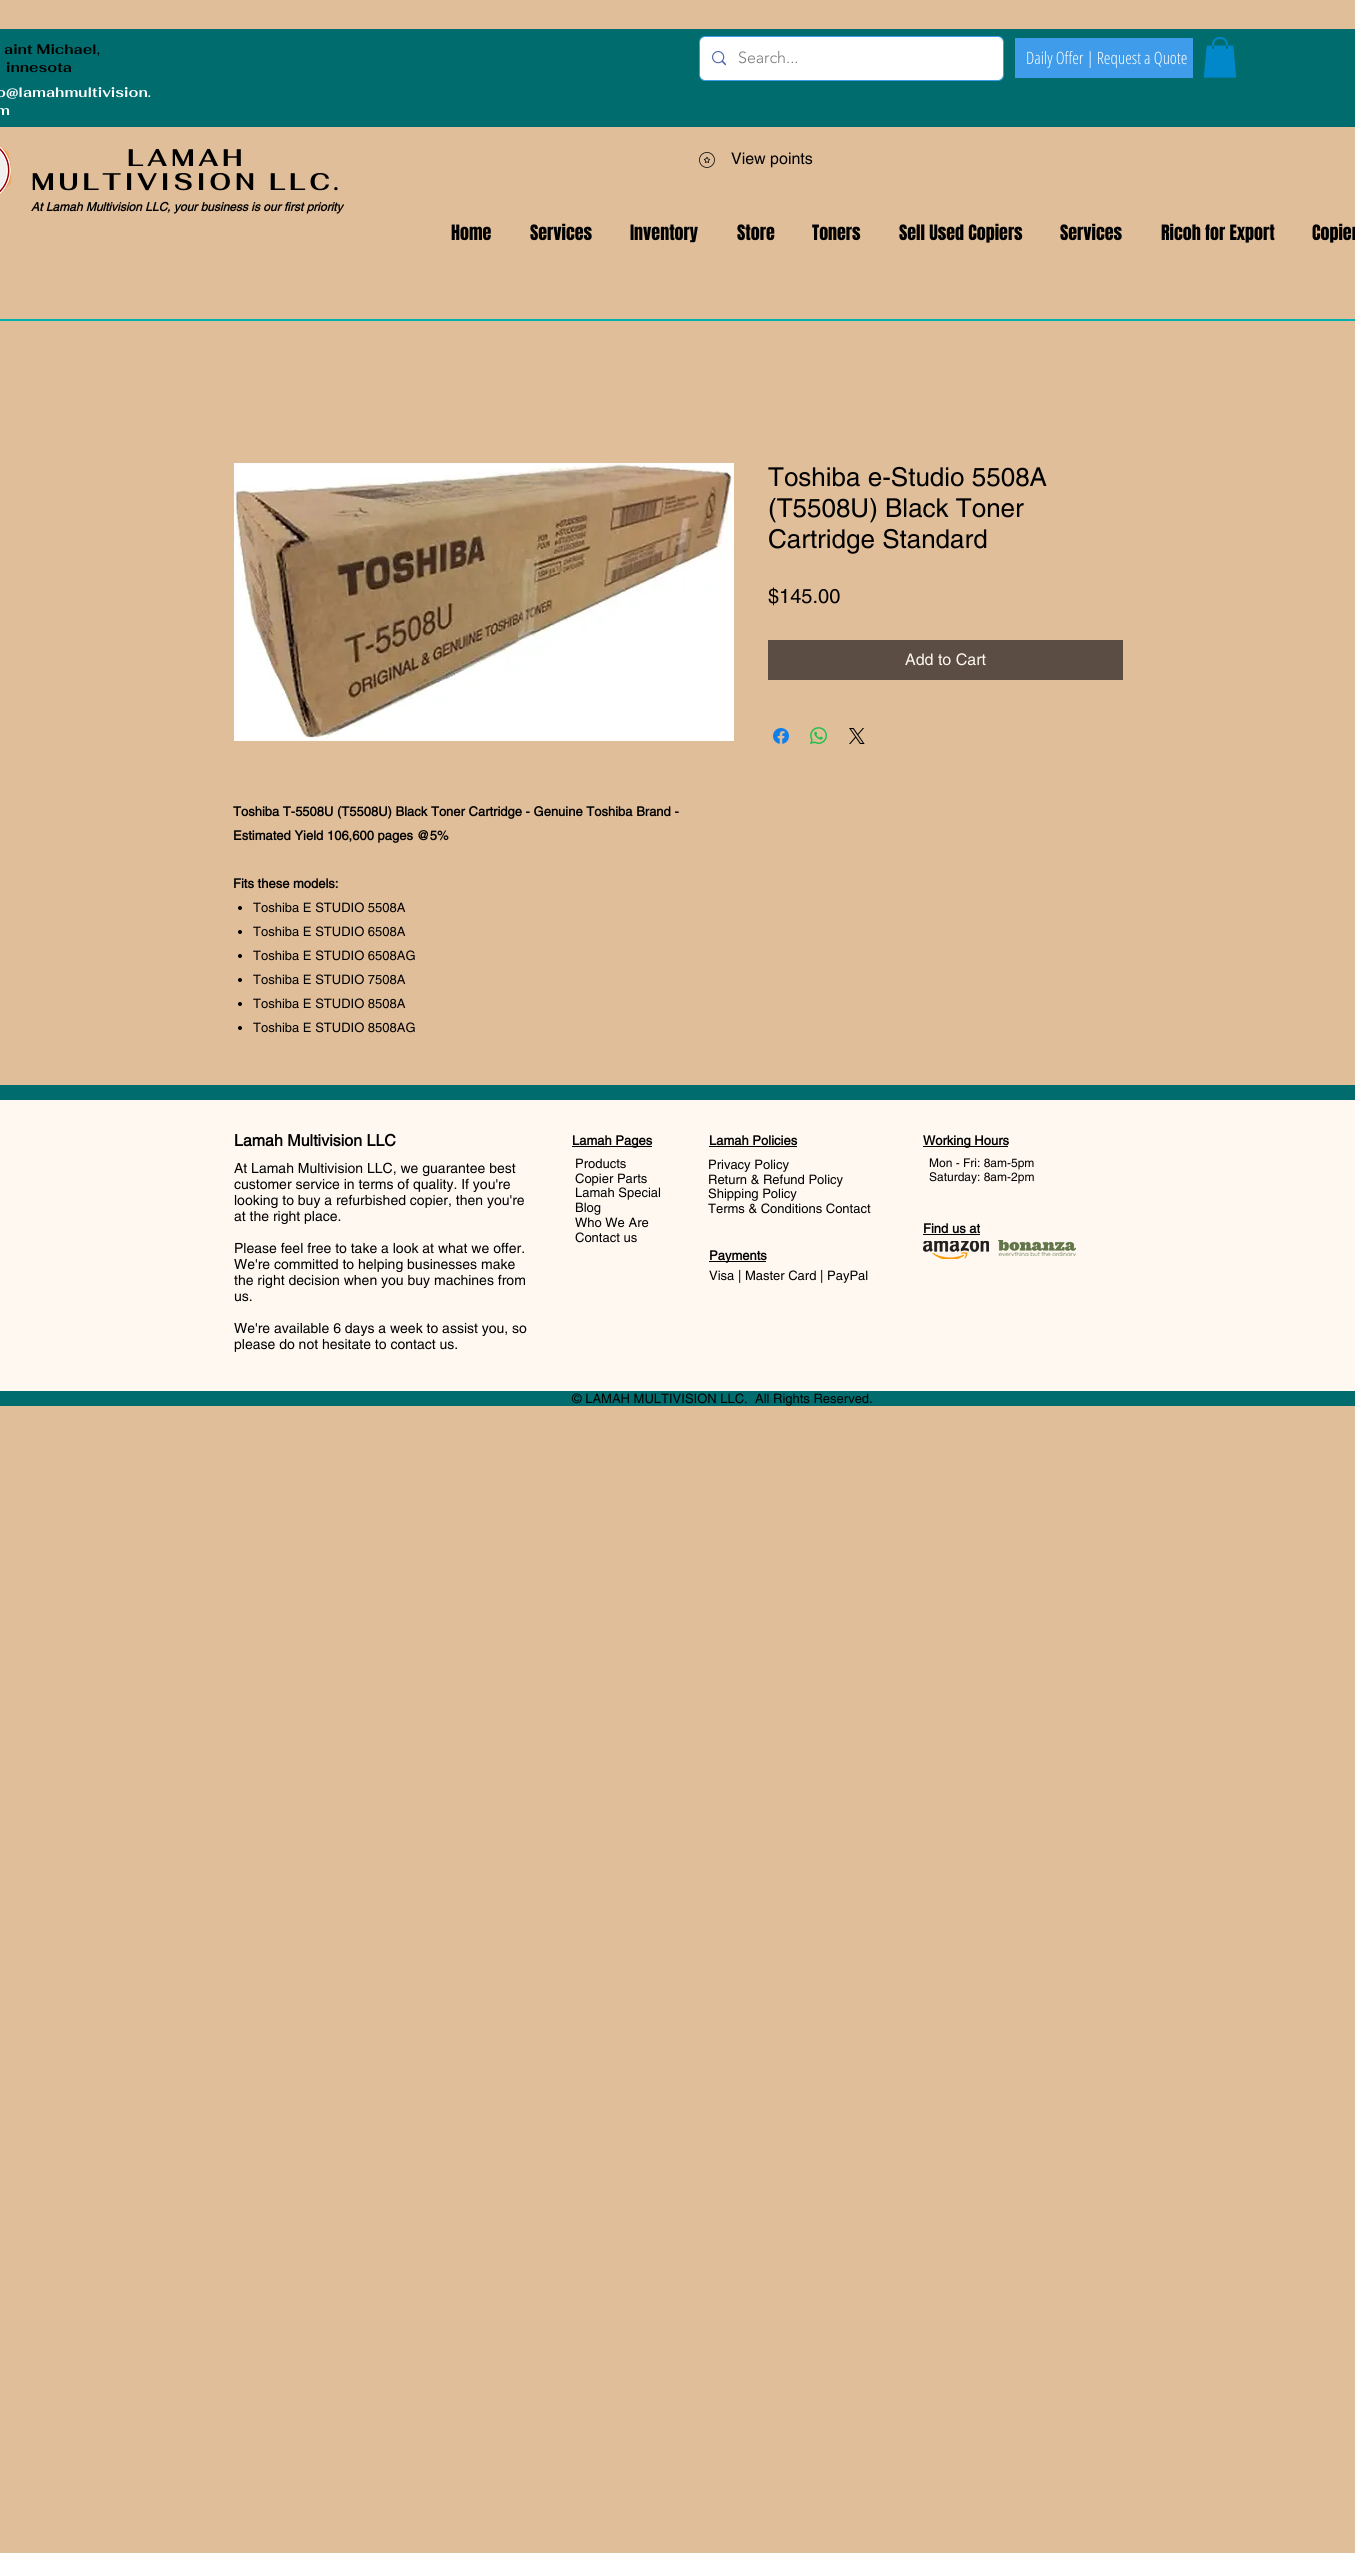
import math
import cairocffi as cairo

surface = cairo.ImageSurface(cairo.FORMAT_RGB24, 1355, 2553)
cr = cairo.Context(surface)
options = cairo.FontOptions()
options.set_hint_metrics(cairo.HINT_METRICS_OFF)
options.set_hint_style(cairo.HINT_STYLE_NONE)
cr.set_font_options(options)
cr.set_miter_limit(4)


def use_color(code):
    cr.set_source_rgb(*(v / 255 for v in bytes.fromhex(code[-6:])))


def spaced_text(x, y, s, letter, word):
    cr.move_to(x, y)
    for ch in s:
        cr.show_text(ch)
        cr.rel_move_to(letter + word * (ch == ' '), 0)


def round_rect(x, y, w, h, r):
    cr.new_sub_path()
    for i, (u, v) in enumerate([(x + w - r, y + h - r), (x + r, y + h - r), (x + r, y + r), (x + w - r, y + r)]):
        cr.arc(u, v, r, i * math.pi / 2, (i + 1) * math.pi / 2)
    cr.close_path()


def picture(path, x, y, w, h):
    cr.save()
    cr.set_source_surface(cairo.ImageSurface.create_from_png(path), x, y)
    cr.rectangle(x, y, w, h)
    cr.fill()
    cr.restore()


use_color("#e0be9a")
cr.paint()
use_color("#006c6d")
cr.rectangle(0, 29, 1355, 98)
cr.fill()
cr.select_font_face("Fahkwang", cairo.FONT_SLANT_NORMAL, cairo.FONT_WEIGHT_BOLD)
cr.set_font_size(14)
use_color("#000000")
cr.move_to(4, 54)
cr.show_text("aint Michael,")
cr.move_to(6, 72)
cr.show_text("innesota")
round_rect(699.5, 36.5, 304, 44, 5.5)
use_color("#3d9be9")
cr.set_line_width(1)
cr.stroke()
use_color("#ffffff")
round_rect(700, 37, 303, 43, 5)
cr.fill()
picture("img1.png", 712, 51, 14, 15)
cr.select_font_face("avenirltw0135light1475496 Light")
cr.set_font_size(16)
use_color("#787878")
cr.move_to(738, 63)
cr.show_text("Search...")
use_color("#3e9cea")
cr.rectangle(1015, 38, 178, 40)
cr.fill()
cr.select_font_face("Open Sans Condensed Light")
cr.set_font_size(17)
use_color("#ffffff")
cr.move_to(1026, 64)
cr.show_text("Daily Offer | Request a Quote")
picture("img2.png", 1203, 37, 34, 41)
cr.select_font_face("Fahkwang", cairo.FONT_SLANT_NORMAL, cairo.FONT_WEIGHT_BOLD)
cr.set_font_size(14)
cr.move_to(-4, 97)
cr.show_text("o@lamahmultivision.")
cr.move_to(-4, 115)
cr.show_text("m")
picture("img3.png", 0, 146, 12, 49)
cr.set_font_size(24)
use_color("#000000")
spaced_text(127, 166, "LAMAH", 3.6, 0)
spaced_text(31, 190, "MULTIVISION LLC.", 3.6, 0)
cr.select_font_face("helvetica", cairo.FONT_SLANT_ITALIC, cairo.FONT_WEIGHT_BOLD)
cr.set_font_size(12)
cr.move_to(31, 211)
cr.show_text("At Lamah Multivision LLC, your business is our first priority")
picture("img4.png", 699, 152, 16, 16)
cr.select_font_face("helvetica")
cr.set_font_size(16)
cr.move_to(731, 164)
cr.show_text("View points")
cr.select_font_face("Anton")
cr.set_font_size(18)
cr.move_to(451, 240)
cr.show_text("Home")
cr.move_to(530, 240)
cr.show_text("Services")
cr.move_to(630, 240)
cr.show_text("Inventory")
cr.move_to(737, 240)
cr.show_text("Store")
cr.move_to(812, 240)
cr.show_text("Toners")
cr.move_to(899, 240)
cr.show_text("Sell Used Copiers")
cr.move_to(1060, 240)
cr.show_text("Services")
cr.move_to(1161, 240)
cr.show_text("Ricoh for Export")
cr.move_to(1312, 240)
cr.show_text("Copier")
use_color("#01b1af")
cr.rectangle(0, 319, 1355, 2)
cr.fill()
cr.select_font_face("helvetica")
cr.set_font_size(26)
use_color("#000000")
cr.move_to(768, 486)
cr.show_text("Toshiba e-Studio 5508A")
cr.move_to(768, 517)
cr.show_text("(T5508U) Black Toner")
cr.move_to(768, 548)
cr.show_text("Cartridge Standard")
cr.set_font_size(20)
cr.move_to(768, 603)
cr.show_text("$145.00")
use_color("#5b4d43")
cr.rectangle(768, 640, 355, 40)
cr.fill()
cr.set_font_size(16)
use_color("#fff8f1")
cr.move_to(905, 665)
cr.show_text("Add to Cart")
picture("img5.png", 773, 728, 16, 16)
picture("img6.png", 810, 727, 17, 17)
picture("img7.png", 849, 728, 16, 16)
picture("img8.png", 234, 463, 500, 278)
cr.select_font_face("helvetica", cairo.FONT_SLANT_NORMAL, cairo.FONT_WEIGHT_BOLD)
cr.set_font_size(13)
use_color("#000000")
cr.move_to(233, 816)
cr.show_text("Toshiba T-5508U (T5508U) Black Toner Cartridge - Genuine Toshiba Brand -")
cr.move_to(233, 840)
cr.show_text("Estimated Yield 106,600 pages @5%")
cr.move_to(233, 888)
cr.show_text("Fits these models:")
cr.new_path()
cr.arc(240, 908, 2, 0, 2 * math.pi)
cr.fill()
cr.select_font_face("helvetica")
cr.move_to(253, 912)
cr.show_text("Toshiba E STUDIO 5508A")
cr.new_path()
cr.arc(240, 932, 2, 0, 2 * math.pi)
cr.fill()
cr.move_to(253, 936)
cr.show_text("Toshiba E STUDIO 6508A")
cr.new_path()
cr.arc(240, 956, 2, 0, 2 * math.pi)
cr.fill()
cr.move_to(253, 960)
cr.show_text("Toshiba E STUDIO 6508AG")
cr.new_path()
cr.arc(240, 980, 2, 0, 2 * math.pi)
cr.fill()
cr.move_to(253, 984)
cr.show_text("Toshiba E STUDIO 7508A")
cr.new_path()
cr.arc(240, 1004, 2, 0, 2 * math.pi)
cr.fill()
cr.move_to(253, 1008)
cr.show_text("Toshiba E STUDIO 8508A")
cr.new_path()
cr.arc(240, 1028, 2, 0, 2 * math.pi)
cr.fill()
cr.move_to(253, 1032)
cr.show_text("Toshiba E STUDIO 8508AG")
use_color("#006c6d")
cr.rectangle(0, 1085, 1355, 321)
cr.fill()
use_color("#fff8f1")
cr.rectangle(0, 1100, 1355, 291)
cr.fill()
cr.select_font_face("helvetica", cairo.FONT_SLANT_NORMAL, cairo.FONT_WEIGHT_BOLD)
cr.set_font_size(16)
use_color("#000000")
cr.move_to(234, 1146)
cr.show_text("Lamah Multivision LLC")
cr.rectangle(572, 1146, 80, 1)
cr.fill()
cr.set_font_size(13)
cr.move_to(572, 1145)
cr.show_text("Lamah Pages")
cr.move_to(709, 1145)
cr.show_text("Lamah Policies")
cr.rectangle(709, 1146, 88, 1)
cr.fill()
cr.rectangle(923, 1146, 85, 1)
cr.fill()
cr.move_to(923, 1145)
cr.show_text("Working Hours")
cr.select_font_face("helvetica")
cr.set_font_size(14)
cr.move_to(234, 1173)
cr.show_text("At Lamah Multivision LLC, we guarantee best")
cr.move_to(234, 1189)
cr.show_text("customer service in terms of quality. If you're")
cr.move_to(234, 1205)
cr.show_text("looking to buy a refurbished copier, then you're")
cr.move_to(234, 1221)
cr.show_text("at the right place.")
cr.move_to(234, 1253)
cr.show_text("Please feel free to take a look at what we offer.")
cr.move_to(234, 1269)
cr.show_text("We're committed to helping businesses make")
cr.move_to(234, 1285)
cr.show_text("the right decision when you buy machines from")
cr.move_to(234, 1301)
cr.show_text("us.")
cr.move_to(234, 1333)
cr.show_text("We're available 6 days a week to assist you, so")
cr.move_to(234, 1349)
cr.show_text("please do not hesitate to contact us.")
cr.set_font_size(13)
cr.move_to(575, 1168)
cr.show_text("Products")
cr.move_to(575, 1183)
cr.show_text("Copier Parts")
cr.move_to(575, 1197)
cr.show_text("Lamah Special")
cr.move_to(575, 1212)
cr.show_text("Blog")
cr.move_to(575, 1227)
cr.show_text("Who We Are")
cr.move_to(575, 1242)
cr.show_text("Contact us")
cr.move_to(708, 1169)
cr.show_text("Privacy Policy")
cr.move_to(708, 1184)
cr.show_text("Return & Refund Policy")
cr.move_to(708, 1198)
cr.show_text("Shipping Policy")
cr.move_to(708, 1213)
cr.show_text("Terms & Conditions Contact")
cr.set_font_size(12)
cr.move_to(929, 1167)
cr.show_text("Mon - Fri: 8am-5pm")
cr.move_to(929, 1181)
cr.show_text("Saturday: 8am-2pm")
cr.select_font_face("helvetica", cairo.FONT_SLANT_NORMAL, cairo.FONT_WEIGHT_BOLD)
cr.set_font_size(13)
cr.move_to(923, 1233)
cr.show_text("Find us at")
cr.rectangle(923, 1234, 57, 1)
cr.fill()
cr.rectangle(709, 1261, 57, 1)
cr.fill()
cr.move_to(709, 1260)
cr.show_text("Payments")
picture("img9.png", 923, 1241, 66, 18)
picture("img10.png", 998, 1240, 78, 16)
cr.select_font_face("helvetica")
cr.move_to(709, 1280)
cr.show_text("Visa | Master Card | PayPal")
cr.move_to(572, 1403)
cr.show_text("© LAMAH MULTIVISION LLC.  All Rights Reserved.")
surface.write_to_png("result.png")
